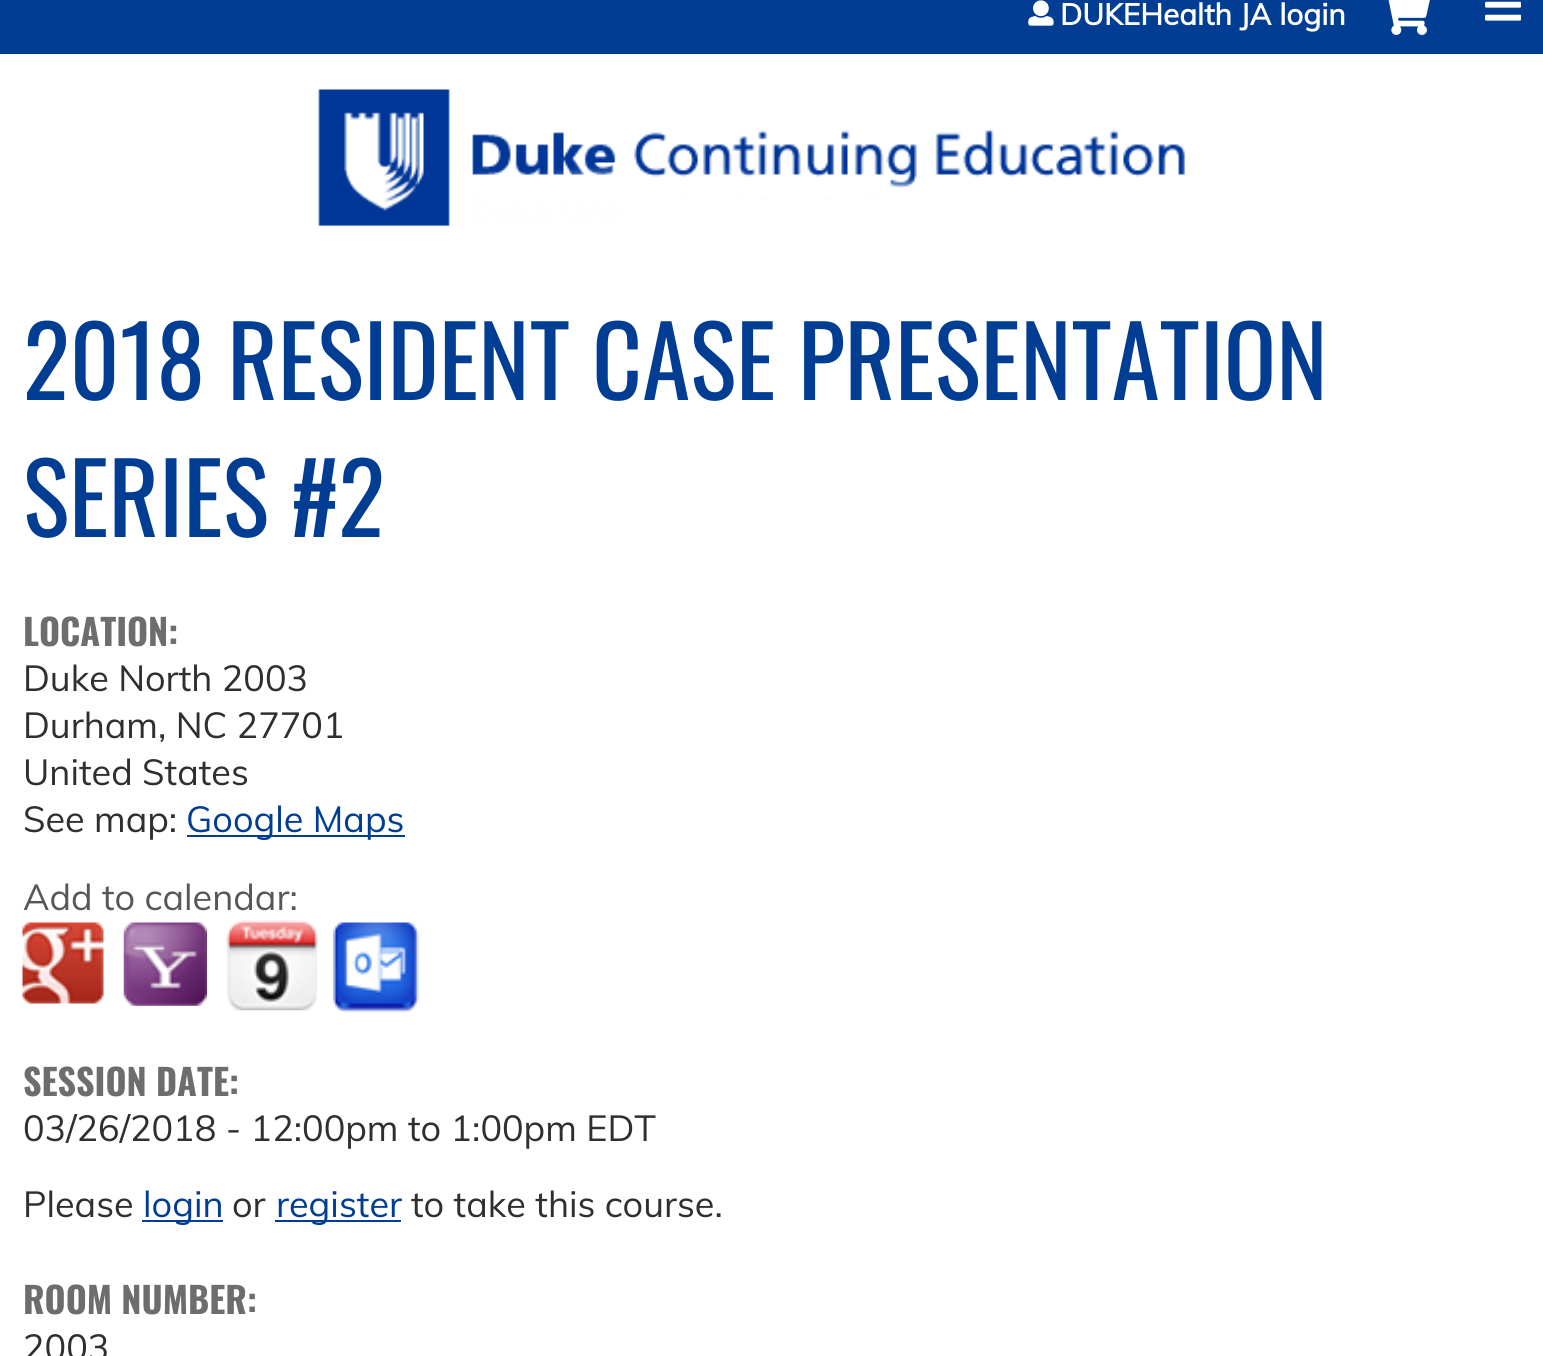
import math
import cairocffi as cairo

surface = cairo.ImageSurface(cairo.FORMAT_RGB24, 1543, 1356)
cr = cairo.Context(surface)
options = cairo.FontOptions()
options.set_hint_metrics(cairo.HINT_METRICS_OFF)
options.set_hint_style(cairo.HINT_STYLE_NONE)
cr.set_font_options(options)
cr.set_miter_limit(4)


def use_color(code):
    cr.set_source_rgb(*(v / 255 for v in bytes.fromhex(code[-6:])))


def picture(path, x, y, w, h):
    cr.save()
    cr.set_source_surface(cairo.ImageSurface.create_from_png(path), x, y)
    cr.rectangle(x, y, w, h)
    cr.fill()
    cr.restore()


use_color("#ffffff")
cr.paint()
use_color("#003d93")
cr.rectangle(0, 0, 1543, 54)
cr.fill()
picture("img1.png", 1028, 0, 26, 26)
cr.select_font_face("Muli", cairo.FONT_SLANT_NORMAL, cairo.FONT_WEIGHT_BOLD)
cr.set_font_size(29.75)
use_color("#ffffff")
cr.move_to(1060, 25)
cr.show_text("DUKEHealth JA login")
picture("img2.png", 1388, 0, 42, 35)
picture("img3.png", 1485, 1, 36, 20)
picture("img4.png", 318, 89, 868, 138)
cr.select_font_face("Oswald")
cr.set_font_size(97.25)
use_color("#003d93")
cr.move_to(23, 400)
cr.show_text("2018 RESIDENT CASE PRESENTATION")
cr.move_to(23, 537)
cr.show_text("SERIES #2")
cr.select_font_face("Oswald", cairo.FONT_SLANT_NORMAL, cairo.FONT_WEIGHT_BOLD)
cr.set_font_size(36)
use_color("#6d6d6d")
cr.move_to(23, 646)
cr.show_text("LOCATION:")
cr.select_font_face("Muli")
use_color("#2f2f2f")
cr.move_to(23, 691)
cr.show_text("Duke North 2003")
cr.move_to(23, 738)
cr.show_text("Durham, NC 27701")
cr.move_to(23, 785)
cr.show_text("United States")
cr.move_to(23, 832)
cr.show_text("See map:")
use_color("#003d93")
cr.rectangle(187, 835, 218, 2)
cr.fill()
cr.move_to(186, 832)
cr.show_text("Google Maps")
use_color("#575757")
cr.move_to(23, 910)
cr.show_text("Add to calendar:")
picture("img5.png", 22, 922, 82, 82)
picture("img6.png", 123, 922, 84, 84)
picture("img7.png", 226, 920, 92, 91)
picture("img8.png", 333, 922, 86, 91)
cr.select_font_face("Oswald", cairo.FONT_SLANT_NORMAL, cairo.FONT_WEIGHT_BOLD)
use_color("#6d6d6d")
cr.move_to(23, 1096)
cr.show_text("SESSION DATE:")
cr.select_font_face("Muli")
use_color("#2f2f2f")
cr.move_to(23, 1141)
cr.show_text("03/26/2018 - 12:00pm to 1:00pm EDT")
cr.move_to(23, 1217)
cr.show_text("Please")
use_color("#003d93")
cr.rectangle(142, 1220, 81, 2)
cr.fill()
cr.move_to(143, 1217)
cr.show_text("login")
use_color("#2f2f2f")
cr.move_to(232, 1217)
cr.show_text("or")
use_color("#003d93")
cr.rectangle(275, 1220, 126, 2)
cr.fill()
cr.move_to(276, 1217)
cr.show_text("register")
use_color("#2f2f2f")
cr.move_to(411, 1217)
cr.show_text("to take this course.")
cr.select_font_face("Oswald", cairo.FONT_SLANT_NORMAL, cairo.FONT_WEIGHT_BOLD)
use_color("#6d6d6d")
cr.move_to(23, 1314)
cr.show_text("ROOM NUMBER:")
cr.select_font_face("Muli")
use_color("#2f2f2f")
cr.move_to(23, 1360)
cr.show_text("2003")
surface.write_to_png("result.png")
